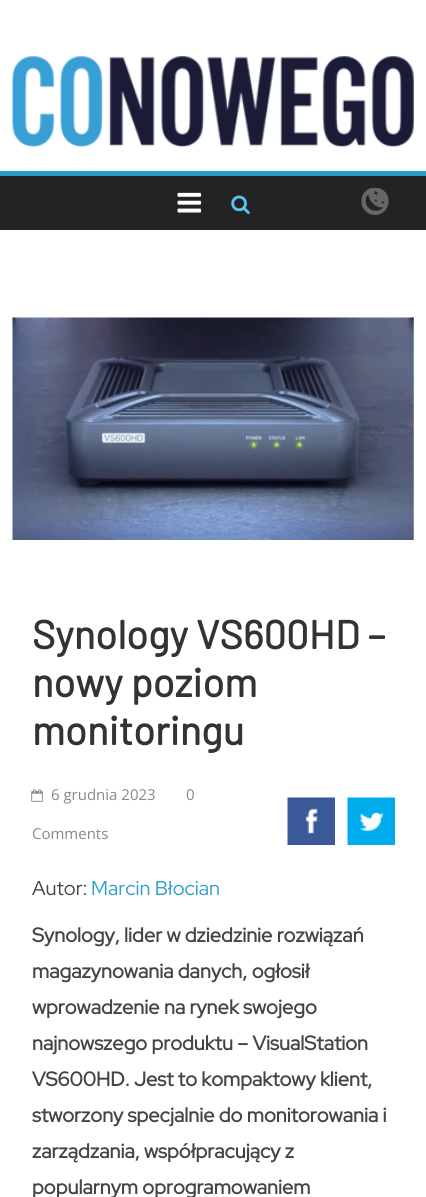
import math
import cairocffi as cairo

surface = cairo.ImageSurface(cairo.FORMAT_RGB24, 426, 1197)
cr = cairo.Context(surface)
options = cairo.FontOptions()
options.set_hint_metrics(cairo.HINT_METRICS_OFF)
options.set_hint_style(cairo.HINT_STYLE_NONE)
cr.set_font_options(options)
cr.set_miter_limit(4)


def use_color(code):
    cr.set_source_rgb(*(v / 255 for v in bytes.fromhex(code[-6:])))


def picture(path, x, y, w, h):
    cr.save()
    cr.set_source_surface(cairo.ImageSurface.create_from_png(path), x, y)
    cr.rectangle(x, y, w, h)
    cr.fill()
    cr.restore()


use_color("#ffffff")
cr.paint()
picture("img1.png", 12, 56, 402, 91)
use_color("#232323")
cr.rectangle(0, 176, 426, 54)
cr.fill()
picture("img2.png", 361, 188, 28, 27)
use_color("#289dcc")
cr.rectangle(0, 171, 426, 5)
cr.fill()
picture("img3.png", 177, 192, 25, 21)
picture("img4.png", 231, 195, 19, 20)
picture("img5.png", 12, 317, 402, 223)
cr.select_font_face("Barlow", cairo.FONT_SLANT_NORMAL, cairo.FONT_WEIGHT_BOLD)
cr.set_font_size(40)
use_color("#333333")
cr.move_to(32, 649)
cr.show_text("Synology VS600HD –")
cr.move_to(32, 697)
cr.show_text("nowy poziom")
cr.move_to(32, 745)
cr.show_text("monitoringu")
picture("img6.png", 31, 789, 12, 13)
cr.select_font_face("Open Sans")
cr.set_font_size(15)
use_color("#888888")
cr.move_to(51, 800)
cr.show_text("6 grudnia 2023")
cr.move_to(186, 800)
cr.show_text("0")
cr.move_to(32, 839)
cr.show_text("Comments")
picture("img7.png", 287, 797, 48, 48)
picture("img8.png", 347, 797, 48, 48)
cr.select_font_face("Red Hat Display")
cr.set_font_size(20)
use_color("#444444")
cr.move_to(32, 895)
cr.show_text("Autor:")
use_color("#289dcc")
cr.move_to(91, 895)
cr.show_text("Marcin Błocian")
cr.select_font_face("Red Hat Display", cairo.FONT_SLANT_NORMAL, cairo.FONT_WEIGHT_BOLD)
use_color("#444444")
cr.move_to(32, 942)
cr.show_text("Synology, lider w dziedzinie rozwiązań")
cr.move_to(32, 978)
cr.show_text("magazynowania danych, ogłosił")
cr.move_to(32, 1014)
cr.show_text("wprowadzenie na rynek swojego")
cr.move_to(32, 1050)
cr.show_text("najnowszego produktu – VisualStation")
cr.move_to(32, 1086)
cr.show_text("VS600HD. Jest to kompaktowy klient,")
cr.move_to(32, 1122)
cr.show_text("stworzony specjalnie do monitorowania i")
cr.move_to(32, 1158)
cr.show_text("zarządzania, współpracujący z")
cr.move_to(32, 1194)
cr.show_text("popularnym oprogramowaniem")
surface.write_to_png("result.png")
